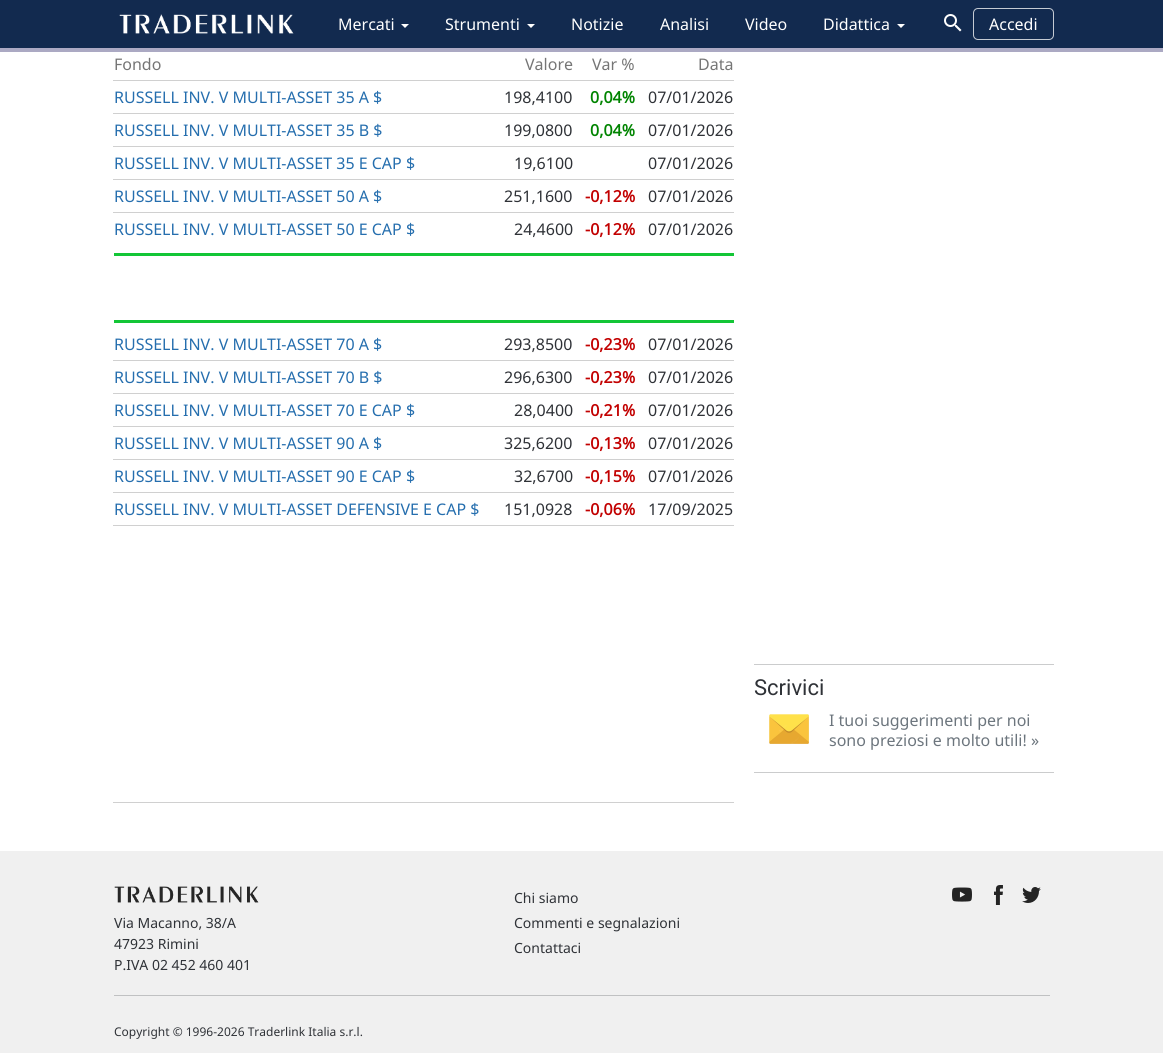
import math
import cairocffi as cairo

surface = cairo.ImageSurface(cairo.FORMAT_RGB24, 1163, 1053)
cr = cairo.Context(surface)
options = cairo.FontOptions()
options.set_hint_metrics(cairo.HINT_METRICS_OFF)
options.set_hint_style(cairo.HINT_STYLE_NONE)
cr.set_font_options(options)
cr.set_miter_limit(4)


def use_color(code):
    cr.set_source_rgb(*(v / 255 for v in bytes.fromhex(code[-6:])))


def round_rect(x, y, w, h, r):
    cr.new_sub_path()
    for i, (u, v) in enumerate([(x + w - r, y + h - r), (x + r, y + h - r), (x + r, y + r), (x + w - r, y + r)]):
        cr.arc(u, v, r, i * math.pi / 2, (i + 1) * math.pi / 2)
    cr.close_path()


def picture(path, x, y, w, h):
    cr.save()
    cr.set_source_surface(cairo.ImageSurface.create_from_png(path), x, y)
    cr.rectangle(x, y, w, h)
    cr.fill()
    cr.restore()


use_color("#ffffff")
cr.paint()
use_color("#122a4f")
cr.rectangle(0, 0, 1163, 48)
cr.fill()
use_color("#aba9c3")
cr.rectangle(0, 48, 1163, 4)
cr.fill()
picture("img1.png", 119, 14, 175, 20)
cr.select_font_face("Noto Sans")
cr.set_font_size(16)
use_color("#ffffff")
cr.move_to(338, 30)
cr.show_text("Mercati")
cr.new_path()
cr.move_to(401, 24)
cr.line_to(409, 24)
cr.line_to(405, 28)
cr.close_path()
cr.fill()
cr.move_to(445, 30)
cr.show_text("Strumenti")
cr.new_path()
cr.move_to(527, 24)
cr.line_to(535, 24)
cr.line_to(531, 28)
cr.close_path()
cr.fill()
cr.move_to(571, 30)
cr.show_text("Notizie")
cr.move_to(660, 30)
cr.show_text("Analisi")
cr.move_to(745, 30)
cr.show_text("Video")
cr.move_to(823, 30)
cr.show_text("Didattica")
cr.new_path()
cr.move_to(897, 24)
cr.line_to(905, 24)
cr.line_to(901, 28)
cr.close_path()
cr.fill()
picture("img2.png", 944, 14, 18, 18)
round_rect(973.5, 8.5, 80, 31, 4.5)
use_color("#c4cad3")
cr.set_line_width(1)
cr.stroke()
use_color("#ffffff")
cr.move_to(989, 30)
cr.show_text("Accedi")
use_color("#d0d0d0")
cr.rectangle(113, 80, 621, 1)
cr.fill()
use_color("#757575")
cr.move_to(114, 70)
cr.show_text("Fondo")
cr.move_to(525, 70)
cr.show_text("Valore")
cr.move_to(592, 70)
cr.show_text("Var %")
cr.move_to(698, 70)
cr.show_text("Data")
use_color("#d0d0d0")
cr.rectangle(113, 113, 621, 1)
cr.fill()
use_color("#256eae")
cr.move_to(114, 103)
cr.show_text("RUSSELL INV. V MULTI-ASSET 35 A $")
use_color("#2f3237")
cr.move_to(504, 103)
cr.show_text("198,4100")
cr.select_font_face("Noto Sans", cairo.FONT_SLANT_NORMAL, cairo.FONT_WEIGHT_BOLD)
use_color("#008400")
cr.move_to(590, 103)
cr.show_text("0,04%")
cr.select_font_face("Noto Sans")
use_color("#2f3237")
cr.move_to(648, 103)
cr.show_text("07/01/2026")
use_color("#d0d0d0")
cr.rectangle(113, 146, 621, 1)
cr.fill()
use_color("#256eae")
cr.move_to(114, 136)
cr.show_text("RUSSELL INV. V MULTI-ASSET 35 B $")
use_color("#2f3237")
cr.move_to(504, 136)
cr.show_text("199,0800")
cr.select_font_face("Noto Sans", cairo.FONT_SLANT_NORMAL, cairo.FONT_WEIGHT_BOLD)
use_color("#008400")
cr.move_to(590, 136)
cr.show_text("0,04%")
cr.select_font_face("Noto Sans")
use_color("#2f3237")
cr.move_to(648, 136)
cr.show_text("07/01/2026")
use_color("#d0d0d0")
cr.rectangle(113, 179, 621, 1)
cr.fill()
use_color("#256eae")
cr.move_to(114, 169)
cr.show_text("RUSSELL INV. V MULTI-ASSET 35 E CAP $")
use_color("#2f3237")
cr.move_to(514, 169)
cr.show_text("19,6100")
cr.move_to(648, 169)
cr.show_text("07/01/2026")
use_color("#d0d0d0")
cr.rectangle(113, 212, 621, 1)
cr.fill()
use_color("#256eae")
cr.move_to(114, 202)
cr.show_text("RUSSELL INV. V MULTI-ASSET 50 A $")
use_color("#2f3237")
cr.move_to(504, 202)
cr.show_text("251,1600")
cr.select_font_face("Noto Sans", cairo.FONT_SLANT_NORMAL, cairo.FONT_WEIGHT_BOLD)
use_color("#c20000")
cr.move_to(585, 202)
cr.show_text("-0,12%")
cr.select_font_face("Noto Sans")
use_color("#2f3237")
cr.move_to(648, 202)
cr.show_text("07/01/2026")
use_color("#256eae")
cr.move_to(114, 235)
cr.show_text("RUSSELL INV. V MULTI-ASSET 50 E CAP $")
use_color("#2f3237")
cr.move_to(514, 235)
cr.show_text("24,4600")
cr.select_font_face("Noto Sans", cairo.FONT_SLANT_NORMAL, cairo.FONT_WEIGHT_BOLD)
use_color("#c20000")
cr.move_to(585, 235)
cr.show_text("-0,12%")
cr.select_font_face("Noto Sans")
use_color("#2f3237")
cr.move_to(648, 235)
cr.show_text("07/01/2026")
use_color("#13c636")
cr.rectangle(114, 253, 620, 3)
cr.fill()
cr.rectangle(114, 320, 620, 3)
cr.fill()
use_color("#d0d0d0")
cr.rectangle(113, 360, 621, 1)
cr.fill()
use_color("#256eae")
cr.move_to(114, 350)
cr.show_text("RUSSELL INV. V MULTI-ASSET 70 A $")
use_color("#2f3237")
cr.move_to(504, 350)
cr.show_text("293,8500")
cr.select_font_face("Noto Sans", cairo.FONT_SLANT_NORMAL, cairo.FONT_WEIGHT_BOLD)
use_color("#c20000")
cr.move_to(585, 350)
cr.show_text("-0,23%")
cr.select_font_face("Noto Sans")
use_color("#2f3237")
cr.move_to(648, 350)
cr.show_text("07/01/2026")
use_color("#d0d0d0")
cr.rectangle(113, 393, 621, 1)
cr.fill()
use_color("#256eae")
cr.move_to(114, 383)
cr.show_text("RUSSELL INV. V MULTI-ASSET 70 B $")
use_color("#2f3237")
cr.move_to(504, 383)
cr.show_text("296,6300")
cr.select_font_face("Noto Sans", cairo.FONT_SLANT_NORMAL, cairo.FONT_WEIGHT_BOLD)
use_color("#c20000")
cr.move_to(585, 383)
cr.show_text("-0,23%")
cr.select_font_face("Noto Sans")
use_color("#2f3237")
cr.move_to(648, 383)
cr.show_text("07/01/2026")
use_color("#d0d0d0")
cr.rectangle(113, 426, 621, 1)
cr.fill()
use_color("#256eae")
cr.move_to(114, 416)
cr.show_text("RUSSELL INV. V MULTI-ASSET 70 E CAP $")
use_color("#2f3237")
cr.move_to(514, 416)
cr.show_text("28,0400")
cr.select_font_face("Noto Sans", cairo.FONT_SLANT_NORMAL, cairo.FONT_WEIGHT_BOLD)
use_color("#c20000")
cr.move_to(585, 416)
cr.show_text("-0,21%")
cr.select_font_face("Noto Sans")
use_color("#2f3237")
cr.move_to(648, 416)
cr.show_text("07/01/2026")
use_color("#d0d0d0")
cr.rectangle(113, 459, 621, 1)
cr.fill()
use_color("#256eae")
cr.move_to(114, 449)
cr.show_text("RUSSELL INV. V MULTI-ASSET 90 A $")
use_color("#2f3237")
cr.move_to(504, 449)
cr.show_text("325,6200")
cr.select_font_face("Noto Sans", cairo.FONT_SLANT_NORMAL, cairo.FONT_WEIGHT_BOLD)
use_color("#c20000")
cr.move_to(585, 449)
cr.show_text("-0,13%")
cr.select_font_face("Noto Sans")
use_color("#2f3237")
cr.move_to(648, 449)
cr.show_text("07/01/2026")
use_color("#d0d0d0")
cr.rectangle(113, 492, 621, 1)
cr.fill()
use_color("#256eae")
cr.move_to(114, 482)
cr.show_text("RUSSELL INV. V MULTI-ASSET 90 E CAP $")
use_color("#2f3237")
cr.move_to(514, 482)
cr.show_text("32,6700")
cr.select_font_face("Noto Sans", cairo.FONT_SLANT_NORMAL, cairo.FONT_WEIGHT_BOLD)
use_color("#c20000")
cr.move_to(585, 482)
cr.show_text("-0,15%")
cr.select_font_face("Noto Sans")
use_color("#2f3237")
cr.move_to(648, 482)
cr.show_text("07/01/2026")
use_color("#d0d0d0")
cr.rectangle(113, 525, 621, 1)
cr.fill()
use_color("#256eae")
cr.move_to(114, 515)
cr.show_text("RUSSELL INV. V MULTI-ASSET DEFENSIVE E CAP $")
use_color("#2f3237")
cr.move_to(504, 515)
cr.show_text("151,0928")
cr.select_font_face("Noto Sans", cairo.FONT_SLANT_NORMAL, cairo.FONT_WEIGHT_BOLD)
use_color("#c20000")
cr.move_to(585, 515)
cr.show_text("-0,06%")
cr.select_font_face("Noto Sans")
use_color("#2f3237")
cr.move_to(648, 515)
cr.show_text("17/09/2025")
use_color("#d0d0d0")
cr.rectangle(113, 802, 621, 1)
cr.fill()
use_color("#cbcccd")
cr.rectangle(754, 664, 300, 1)
cr.fill()
cr.select_font_face("Roboto")
cr.set_font_size(22)
use_color("#2f3237")
cr.move_to(754, 695)
cr.show_text("Scrivici")
picture("img3.png", 769, 714, 40, 30)
cr.select_font_face("Noto Sans")
cr.set_font_size(16)
use_color("#6c757d")
cr.move_to(829, 726)
cr.show_text("I tuoi suggerimenti per noi")
cr.move_to(829, 746)
cr.show_text("sono preziosi e molto utili! »")
use_color("#cbcccd")
cr.rectangle(754, 772, 300, 1)
cr.fill()
use_color("#f0f0f0")
cr.rectangle(0, 851, 1163, 202)
cr.fill()
picture("img4.png", 114, 886, 145, 17)
cr.set_font_size(14)
use_color("#2f3237")
cr.move_to(114, 928)
cr.show_text("Via Macanno, 38/A")
cr.move_to(114, 949)
cr.show_text("47923 Rimini")
cr.move_to(114, 970)
cr.show_text("P.IVA 02 452 460 401")
cr.move_to(514, 903)
cr.show_text("Chi siamo")
cr.move_to(514, 928)
cr.show_text("Commenti e segnalazioni")
cr.move_to(514, 953)
cr.show_text("Contattaci")
picture("img5.png", 952, 887, 20, 15)
picture("img6.png", 994, 885, 9, 20)
picture("img7.png", 1022, 887, 19, 16)
use_color("#c0c1c2")
cr.rectangle(114, 995, 936, 1)
cr.fill()
cr.set_font_size(12)
use_color("#2f3237")
cr.move_to(114, 1036)
cr.show_text("Copyright © 1996-2026 Traderlink Italia s.r.l.")
surface.write_to_png("result.png")
